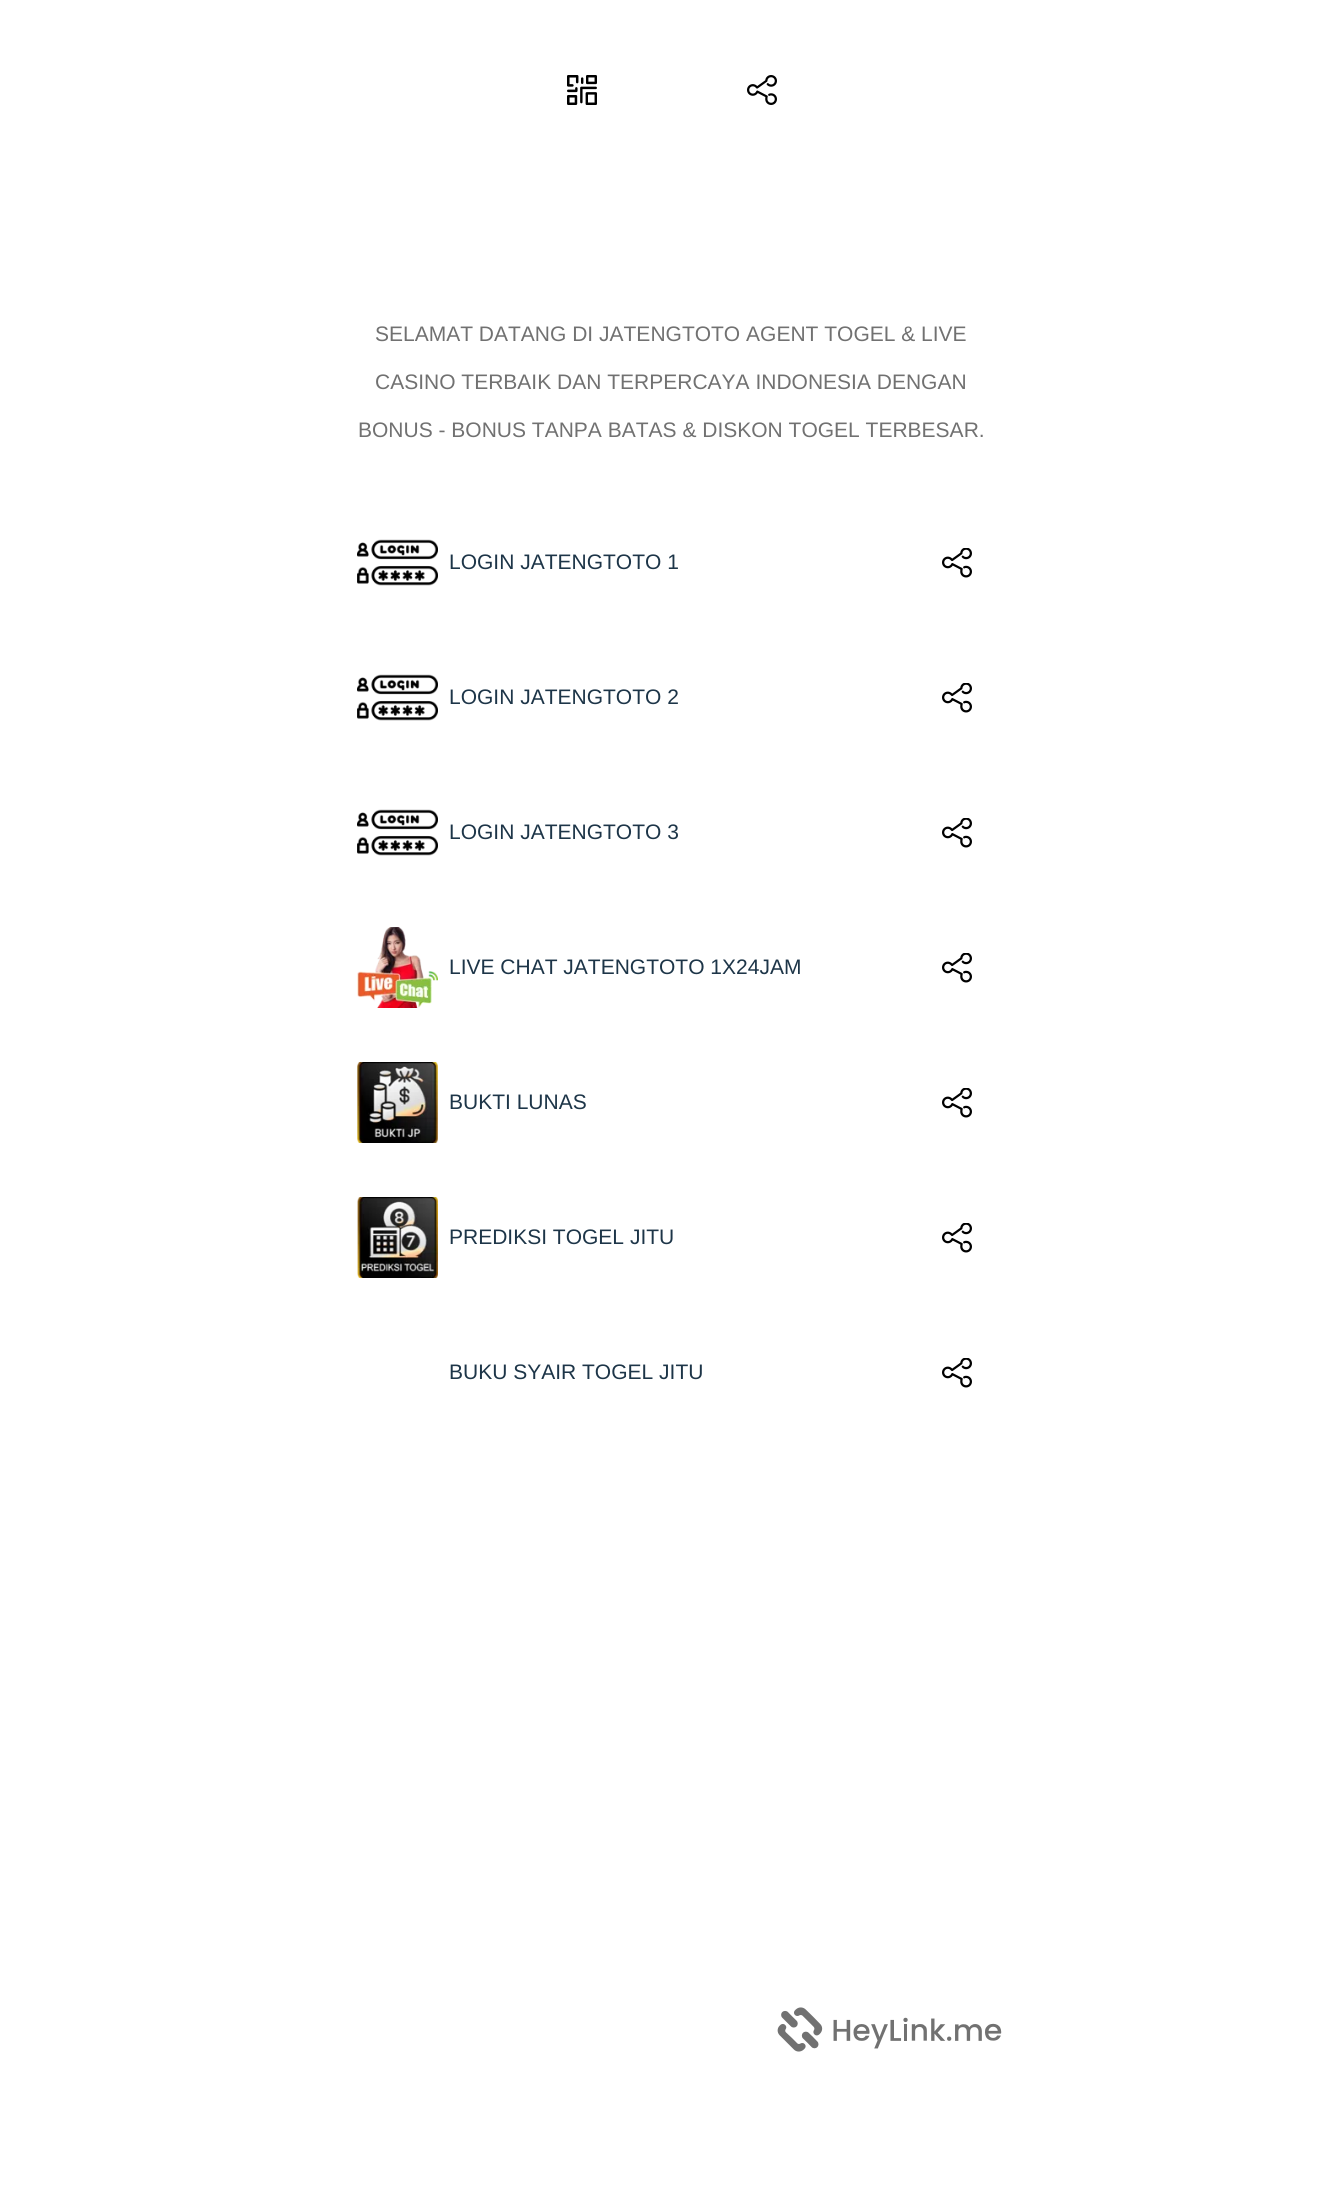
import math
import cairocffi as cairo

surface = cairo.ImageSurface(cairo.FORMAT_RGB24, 1342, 2186)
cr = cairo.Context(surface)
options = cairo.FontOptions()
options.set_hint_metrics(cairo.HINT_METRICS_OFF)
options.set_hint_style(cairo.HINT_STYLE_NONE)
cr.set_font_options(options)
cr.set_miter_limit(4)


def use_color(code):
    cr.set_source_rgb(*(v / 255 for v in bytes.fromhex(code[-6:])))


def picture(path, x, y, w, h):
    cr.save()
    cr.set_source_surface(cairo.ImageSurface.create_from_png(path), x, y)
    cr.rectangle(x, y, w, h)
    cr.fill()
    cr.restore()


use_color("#ffffff")
cr.paint()
picture("img1.png", 567, 75, 30, 30)
picture("img2.png", 747, 75, 30, 30)
cr.select_font_face("Liberation Sans")
cr.set_font_size(21)
use_color("#717171")
cr.move_to(375, 341)
cr.show_text("SELAMAT DATANG DI JATENGTOTO AGENT TOGEL & LIVE")
cr.move_to(375, 389)
cr.show_text("CASINO TERBAIK DAN TERPERCAYA INDONESIA DENGAN")
cr.move_to(358, 437)
cr.show_text("BONUS - BONUS TANPA BATAS & DISKON TOGEL TERBESAR.")
picture("img3.png", 357, 539, 81, 47)
use_color("#1d3548")
cr.move_to(449, 569)
cr.show_text("LOGIN JATENGTOTO 1")
picture("img4.png", 942, 548, 30, 30)
picture("img3.png", 357, 674, 81, 47)
cr.move_to(449, 704)
cr.show_text("LOGIN JATENGTOTO 2")
picture("img4.png", 942, 683, 30, 30)
picture("img3.png", 357, 809, 81, 47)
cr.move_to(449, 839)
cr.show_text("LOGIN JATENGTOTO 3")
picture("img4.png", 942, 818, 30, 30)
picture("img5.png", 357, 927, 81, 81)
cr.move_to(449, 974)
cr.show_text("LIVE CHAT JATENGTOTO 1X24JAM")
picture("img4.png", 942, 953, 30, 30)
picture("img6.png", 357, 1062, 81, 81)
cr.move_to(449, 1109)
cr.show_text("BUKTI LUNAS")
picture("img4.png", 942, 1088, 30, 30)
picture("img7.png", 357, 1197, 81, 81)
cr.move_to(449, 1244)
cr.show_text("PREDIKSI TOGEL JITU")
picture("img4.png", 942, 1223, 30, 30)
cr.move_to(449, 1379)
cr.show_text("BUKU SYAIR TOGEL JITU")
picture("img4.png", 942, 1358, 30, 30)
picture("img8.png", 777, 2007, 225, 45)
surface.write_to_png("result.png")
